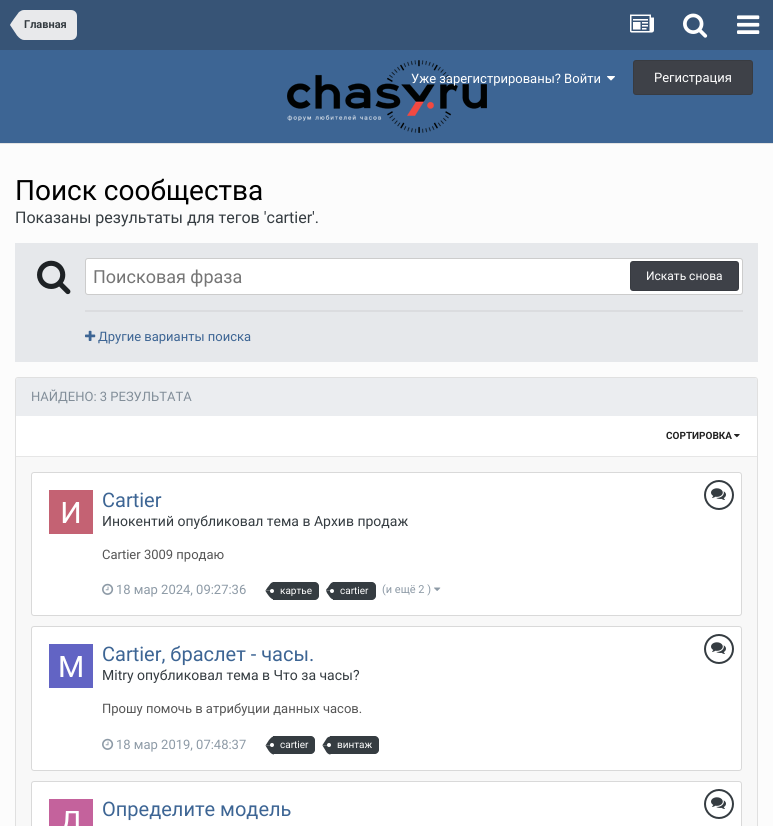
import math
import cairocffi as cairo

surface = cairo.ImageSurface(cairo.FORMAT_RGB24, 773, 826)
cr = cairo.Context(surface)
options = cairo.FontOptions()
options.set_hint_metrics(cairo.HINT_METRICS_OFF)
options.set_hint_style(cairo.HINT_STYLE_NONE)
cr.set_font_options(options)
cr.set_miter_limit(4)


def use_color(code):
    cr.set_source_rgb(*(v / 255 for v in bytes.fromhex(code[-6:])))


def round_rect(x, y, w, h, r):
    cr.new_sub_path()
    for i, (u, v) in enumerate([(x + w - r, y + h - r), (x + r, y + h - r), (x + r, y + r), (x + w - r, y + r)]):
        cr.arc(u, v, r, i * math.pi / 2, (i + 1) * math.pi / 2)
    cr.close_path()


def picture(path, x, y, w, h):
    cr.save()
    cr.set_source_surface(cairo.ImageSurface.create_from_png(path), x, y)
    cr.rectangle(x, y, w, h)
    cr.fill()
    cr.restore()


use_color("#fcfcfc")
cr.paint()
use_color("#e3e3e3")
cr.rectangle(0, 143, 773, 1)
cr.fill()
use_color("#375476")
cr.rectangle(0, 0, 773, 50)
cr.fill()
use_color("#e8e9eb")
cr.new_path()
cr.move_to(24, 10)
cr.line_to(71, 10)
cr.curve_to(74.5, 10, 77, 12.5, 77, 16)
cr.line_to(77, 34)
cr.curve_to(77, 37.5, 74.5, 40, 71, 40)
cr.line_to(24, 40)
cr.close_path()
cr.fill()
cr.new_path()
cr.move_to(24, 25)
cr.line_to(24, 40)
cr.curve_to(22, 40, 19.5, 38.5, 17, 35.5)
cr.line_to(10, 25)
cr.close_path()
cr.move_to(24, 25)
cr.line_to(10, 25)
cr.curve_to(10, 24, 18.5, 12.5, 19, 12)
cr.curve_to(20.5, 11, 22, 10, 24, 10)
cr.close_path()
cr.fill()
cr.select_font_face("Roboto", cairo.FONT_SLANT_NORMAL, cairo.FONT_WEIGHT_BOLD)
cr.set_font_size(11)
use_color("#353c41")
cr.move_to(24, 28)
cr.show_text("Главная")
picture("img1.png", 630, 14, 24, 19)
picture("img2.png", 683, 13, 25, 25)
picture("img3.png", 737, 15, 23, 19)
use_color("#3d6594")
cr.rectangle(0, 50, 773, 93)
cr.fill()
picture("img4.png", 287, 60, 200, 73)
cr.select_font_face("Roboto")
cr.set_font_size(13)
use_color("#ffffff")
cr.move_to(411, 83)
cr.show_text("Уже зарегистрированы? Войти")
picture("img5.png", 607, 76, 8, 5)
use_color("#3e4148")
round_rect(633, 60, 120, 35, 3)
cr.fill()
round_rect(633.5, 60.5, 119, 34, 2.5)
cr.set_source_rgba(0, 0, 0, 0.1)
cr.set_line_width(1)
cr.stroke()
use_color("#ffffff")
cr.move_to(654, 82)
cr.show_text("Регистрация")
cr.set_font_size(28)
use_color("#000000")
cr.move_to(15, 200)
cr.show_text("Поиск сообщества")
cr.set_font_size(16)
use_color("#353c41")
cr.move_to(15, 223)
cr.show_text("Показаны результаты для тегов 'cartier'.")
use_color("#e6e8eb")
cr.rectangle(15, 243, 743, 119)
cr.fill()
picture("img6.png", 37, 260, 34, 35)
use_color("#ffffff")
round_rect(85, 258, 658, 37, 3)
cr.fill()
round_rect(85.5, 258.5, 657, 36, 2.5)
cr.set_source_rgba(0, 0, 0, 0.2)
cr.stroke()
cr.set_font_size(18)
use_color("#757575")
cr.move_to(93, 283)
cr.show_text("Поисковая фраза")
use_color("#3e4148")
round_rect(630, 261, 109, 30, 3)
cr.fill()
round_rect(630.5, 261.5, 108, 29, 2.5)
cr.set_source_rgba(0, 0, 0, 0.1)
cr.stroke()
cr.set_font_size(12)
use_color("#ffffff")
cr.move_to(646, 280)
cr.show_text("Искать снова")
use_color("#dbdcdf")
cr.rectangle(85, 310, 658, 2)
cr.fill()
picture("img7.png", 85, 330, 11, 11)
cr.set_font_size(13)
use_color("#3d6594")
cr.move_to(98, 341)
cr.show_text("Другие варианты поиска")
use_color("#ffffff")
round_rect(15.5, 377.5, 742, 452, 2.5)
cr.fill_preserve()
use_color("#e0e0e0")
cr.stroke()
use_color("#ebedf0")
cr.new_path()
cr.move_to(18, 378)
cr.line_to(755, 378)
cr.curve_to(756, 378, 757, 379, 757, 380)
cr.line_to(757, 416)
cr.line_to(16, 416)
cr.line_to(16, 380)
cr.curve_to(16, 379, 17, 378, 18, 378)
cr.close_path()
cr.fill()
use_color("#828e99")
cr.move_to(31, 401)
cr.show_text("НАЙДЕНО: 3 РЕЗУЛЬТАТА")
use_color("#e6e6e6")
cr.rectangle(16, 456, 741, 1)
cr.fill()
cr.select_font_face("Roboto", cairo.FONT_SLANT_NORMAL, cairo.FONT_WEIGHT_BOLD)
cr.set_font_size(10)
use_color("#222222")
cr.move_to(666, 439)
cr.show_text("СОРТИРОВКА")
picture("img8.png", 734, 434, 6, 4)
use_color("#f8f8f8")
cr.rectangle(16, 457, 741, 369)
cr.fill()
use_color("#ffffff")
round_rect(31.5, 472.5, 710, 143, 2.5)
cr.fill_preserve()
use_color("#d9d9d9")
cr.stroke()
picture("img9.png", 49, 490, 44, 44)
cr.select_font_face("Roboto")
cr.set_font_size(20)
use_color("#3d6594")
cr.move_to(102, 507)
cr.show_text("Cartier")
cr.set_font_size(14)
use_color("#353c41")
cr.move_to(102, 526)
cr.show_text("Инокентий опубликовал тема в Архив продаж")
cr.new_path()
cr.arc(719, 495, 14, 0, 2 * math.pi)
cr.set_line_width(2)
cr.stroke()
picture("img10.png", 711, 488, 15, 12)
cr.set_font_size(13)
use_color("#555555")
cr.move_to(102, 559)
cr.show_text("Cartier 3009 продаю")
picture("img11.png", 102, 583, 12, 12)
use_color("#8d9aa6")
cr.move_to(116, 594)
cr.show_text("18 мар 2024, 09:27:36")
use_color("#353c41")
cr.new_path()
cr.move_to(273, 582)
cr.line_to(315, 582)
cr.curve_to(317, 582, 319, 584, 319, 586)
cr.line_to(319, 596)
cr.curve_to(319, 598, 317, 600, 315, 600)
cr.line_to(273, 600)
cr.close_path()
cr.fill()
cr.new_path()
cr.move_to(265.5, 591)
cr.line_to(265.5, 590.5)
cr.line_to(274, 590.5)
cr.line_to(273.5, 591)
cr.line_to(274, 591)
cr.line_to(274, 599.5)
cr.curve_to(270.5, 599.5, 267, 593.5, 265.5, 591)
cr.close_path()
cr.fill()
cr.new_path()
cr.move_to(267.5, 587.5)
cr.curve_to(269.5, 585.5, 270.5, 582, 274, 582)
cr.line_to(274, 590.5)
cr.line_to(265.5, 590.5)
cr.close_path()
cr.fill()
cr.set_font_size(10)
use_color("#ffffff")
cr.move_to(280, 594)
cr.show_text("картье")
cr.new_path()
cr.arc(272, 591, 2, 0, 2 * math.pi)
cr.fill()
use_color("#353c41")
cr.new_path()
cr.move_to(333, 582)
cr.line_to(372, 582)
cr.curve_to(374, 582, 376, 584, 376, 586)
cr.line_to(376, 596)
cr.curve_to(376, 598, 374, 600, 372, 600)
cr.line_to(333, 600)
cr.close_path()
cr.fill()
cr.new_path()
cr.move_to(334, 599.5)
cr.curve_to(330.5, 599.5, 329, 595.5, 327, 593)
cr.line_to(326, 590.5)
cr.line_to(334, 590.5)
cr.close_path()
cr.fill()
cr.new_path()
cr.move_to(327.5, 588)
cr.line_to(328, 587.5)
cr.curve_to(329.5, 585, 331, 582, 334, 582)
cr.line_to(334, 590.5)
cr.line_to(326, 590.5)
cr.curve_to(326, 589.5, 327, 588.5, 327.5, 588)
cr.close_path()
cr.fill()
use_color("#ffffff")
cr.move_to(340, 594)
cr.show_text("cartier")
cr.new_path()
cr.arc(332, 591, 2, 0, 2 * math.pi)
cr.fill()
cr.set_font_size(11)
use_color("#8d9aa6")
cr.move_to(382, 593)
cr.show_text("(и ещё 2 )")
picture("img12.png", 434, 587, 7, 4)
use_color("#ffffff")
round_rect(31.5, 626.5, 710, 144, 2.5)
cr.fill_preserve()
use_color("#d9d9d9")
cr.set_line_width(1)
cr.stroke()
picture("img13.png", 49, 644, 44, 44)
cr.set_font_size(20)
use_color("#3d6594")
cr.move_to(102, 661)
cr.show_text("Cartier, браслет - часы.")
cr.set_font_size(14)
use_color("#353c41")
cr.move_to(102, 680)
cr.show_text("Mitry опубликовал тема в Что за часы?")
cr.new_path()
cr.arc(719, 649, 14, 0, 2 * math.pi)
cr.set_line_width(2)
cr.stroke()
picture("img10.png", 711, 642, 15, 12)
cr.set_font_size(13)
use_color("#555555")
cr.move_to(102, 713)
cr.show_text("Прошу помочь в атрибуции данных часов.")
picture("img11.png", 102, 738, 12, 12)
use_color("#8d9aa6")
cr.move_to(116, 749)
cr.show_text("18 мар 2019, 07:48:37")
use_color("#353c41")
cr.new_path()
cr.move_to(273, 736)
cr.line_to(311, 736)
cr.curve_to(313, 736, 315, 738, 315, 740)
cr.line_to(315, 750)
cr.curve_to(315, 752, 313, 754, 311, 754)
cr.line_to(273, 754)
cr.close_path()
cr.fill()
cr.new_path()
cr.move_to(274, 754.5)
cr.curve_to(270, 754.5, 267, 748, 265.5, 745.5)
cr.line_to(274, 745.5)
cr.line_to(273.5, 746)
cr.line_to(274, 746)
cr.close_path()
cr.fill()
cr.new_path()
cr.move_to(269, 740)
cr.curve_to(270.5, 738.5, 271.5, 736.5, 274, 736.5)
cr.line_to(274, 745)
cr.line_to(273.5, 745)
cr.line_to(274, 745.5)
cr.line_to(265.5, 745.5)
cr.close_path()
cr.fill()
cr.set_font_size(10)
use_color("#ffffff")
cr.move_to(280, 748)
cr.show_text("cartier")
cr.new_path()
cr.arc(272, 745, 2, 0, 2 * math.pi)
cr.fill()
use_color("#353c41")
cr.new_path()
cr.move_to(330, 736)
cr.line_to(375, 736)
cr.curve_to(377, 736, 379, 738, 379, 740)
cr.line_to(379, 750)
cr.curve_to(379, 752, 377, 754, 375, 754)
cr.line_to(330, 754)
cr.close_path()
cr.fill()
cr.set_fill_rule(cairo.FILL_RULE_EVEN_ODD)
cr.new_path()
cr.move_to(325.5, 750.5)
cr.line_to(322.5, 745.5)
cr.line_to(330.5, 745.5)
cr.line_to(330.5, 754.5)
cr.curve_to(328, 754.5, 326.5, 752.5, 325.5, 750.5)
cr.close_path()
cr.move_to(330.5, 745.5)
cr.line_to(330.5, 745.5)
cr.close_path()
cr.fill()
cr.new_path()
cr.move_to(327, 738)
cr.curve_to(328, 737, 329.5, 736.5, 330.5, 736.5)
cr.line_to(330.5, 745.5)
cr.line_to(322.5, 745.5)
cr.line_to(322.5, 745)
cr.close_path()
cr.move_to(330.5, 745.5)
cr.line_to(330.5, 745.5)
cr.close_path()
cr.fill()
use_color("#ffffff")
cr.move_to(337, 748)
cr.show_text("винтаж")
cr.new_path()
cr.arc(329, 745, 2, 0, 2 * math.pi)
cr.fill()
round_rect(31.5, 781.5, 710, 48, 2.5)
cr.fill_preserve()
use_color("#d9d9d9")
cr.set_line_width(1)
cr.stroke()
picture("img14.png", 49, 799, 44, 27)
cr.set_font_size(20)
use_color("#3d6594")
cr.move_to(102, 816)
cr.show_text("Определите модель")
cr.new_path()
cr.arc(719, 804, 14, 0, 2 * math.pi)
use_color("#353c41")
cr.set_line_width(2)
cr.stroke()
picture("img10.png", 711, 797, 15, 12)
surface.write_to_png("result.png")
